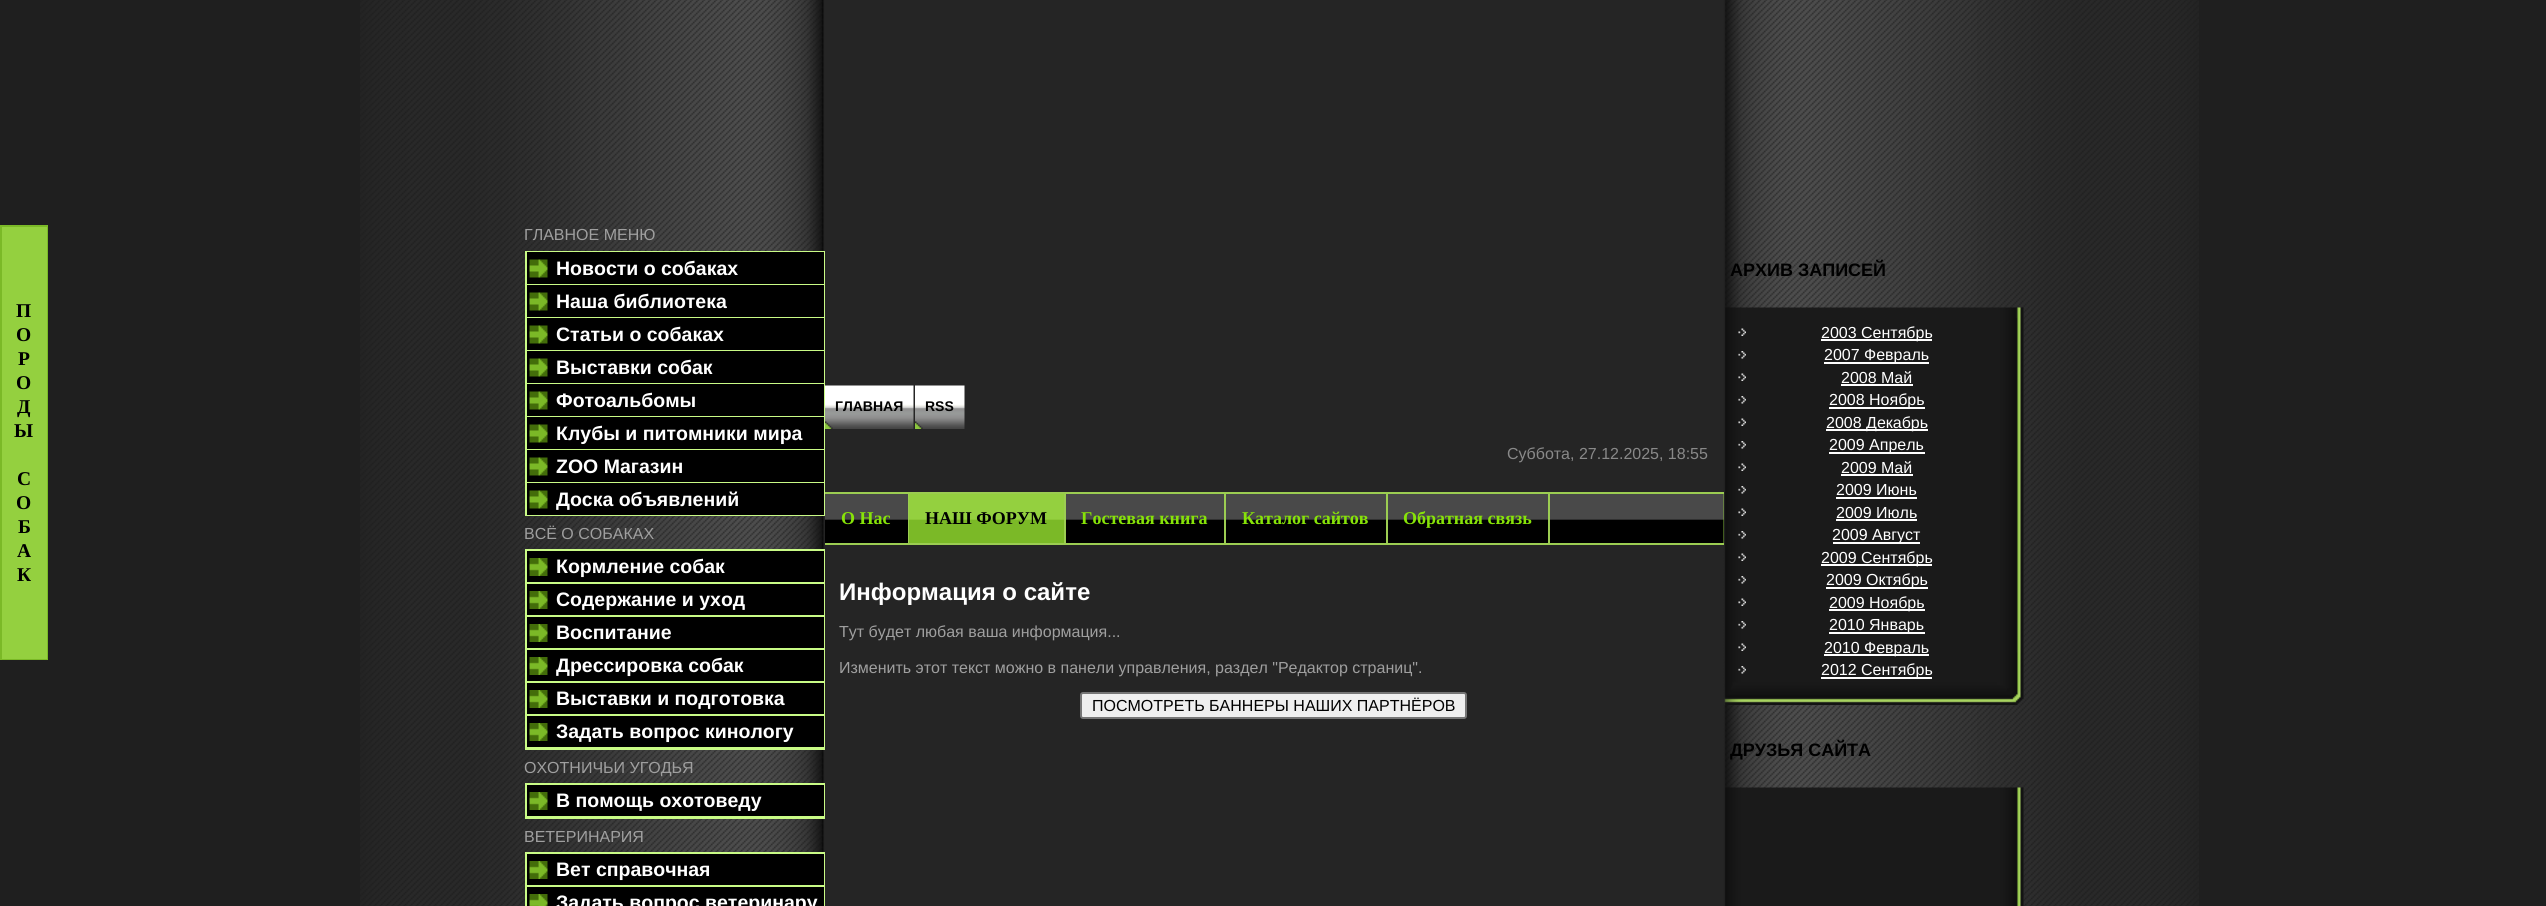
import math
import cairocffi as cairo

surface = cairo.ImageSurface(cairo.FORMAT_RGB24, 2546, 906)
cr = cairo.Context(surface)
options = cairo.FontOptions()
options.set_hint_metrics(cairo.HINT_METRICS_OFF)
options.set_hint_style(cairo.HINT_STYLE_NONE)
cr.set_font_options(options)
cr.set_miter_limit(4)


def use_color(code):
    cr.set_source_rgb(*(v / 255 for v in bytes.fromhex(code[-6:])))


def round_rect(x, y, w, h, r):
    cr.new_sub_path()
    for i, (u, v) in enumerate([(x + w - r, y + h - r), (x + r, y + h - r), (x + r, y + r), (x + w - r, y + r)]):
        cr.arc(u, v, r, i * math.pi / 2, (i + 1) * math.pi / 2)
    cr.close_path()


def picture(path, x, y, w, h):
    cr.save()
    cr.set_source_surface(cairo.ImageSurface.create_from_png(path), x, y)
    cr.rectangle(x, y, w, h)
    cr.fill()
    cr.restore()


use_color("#1f1f1f")
cr.paint()
use_color("#7bb927")
cr.rectangle(0, 225, 48, 435)
cr.fill()
use_color("#94d03f")
cr.rectangle(2, 227, 45, 432)
cr.fill()
cr.select_font_face("Liberation Serif", cairo.FONT_SLANT_NORMAL, cairo.FONT_WEIGHT_BOLD)
cr.set_font_size(19.5)
use_color("#000000")
cr.move_to(16, 317)
cr.show_text("П")
cr.move_to(16, 341)
cr.show_text("О")
cr.move_to(18, 365)
cr.show_text("Р")
cr.move_to(16, 389)
cr.show_text("О")
cr.move_to(17, 413)
cr.show_text("Д")
cr.move_to(14, 437)
cr.show_text("Ы")
cr.move_to(17, 485)
cr.show_text("С")
cr.move_to(16, 509)
cr.show_text("О")
cr.move_to(18, 533)
cr.show_text("Б")
cr.move_to(17, 557)
cr.show_text("А")
cr.move_to(17, 581)
cr.show_text("К")
picture("img1.png", 360, 0, 1839, 906)
cr.select_font_face("Liberation Sans")
cr.set_font_size(16)
use_color("#9f9f9f")
cr.move_to(524, 240)
cr.show_text("ГЛАВНОЕ МЕНЮ")
cr.rectangle(526, 252, 298, 263)
use_color("#c9fb86")
cr.stroke()
use_color("#000000")
cr.rectangle(527, 252, 297, 32)
cr.fill()
picture("img2.png", 529, 259, 19, 19)
use_color("#c9fb86")
cr.rectangle(527, 284, 297, 1)
cr.fill()
cr.select_font_face("Liberation Sans", cairo.FONT_SLANT_NORMAL, cairo.FONT_WEIGHT_BOLD)
cr.set_font_size(19.5)
use_color("#ffffff")
cr.move_to(556, 275)
cr.show_text("Новости о собаках")
use_color("#000000")
cr.rectangle(527, 285, 297, 32)
cr.fill()
picture("img2.png", 529, 292, 19, 19)
use_color("#c9fb86")
cr.rectangle(527, 317, 297, 1)
cr.fill()
use_color("#ffffff")
cr.move_to(556, 308)
cr.show_text("Наша библиотека")
use_color("#000000")
cr.rectangle(527, 318, 297, 32)
cr.fill()
picture("img2.png", 529, 325, 19, 19)
use_color("#c9fb86")
cr.rectangle(527, 350, 297, 1)
cr.fill()
use_color("#ffffff")
cr.move_to(556, 341)
cr.show_text("Статьи о собаках")
use_color("#000000")
cr.rectangle(527, 351, 297, 32)
cr.fill()
picture("img2.png", 529, 358, 19, 19)
use_color("#c9fb86")
cr.rectangle(527, 383, 297, 1)
cr.fill()
use_color("#ffffff")
cr.move_to(556, 374)
cr.show_text("Выставки собак")
use_color("#000000")
cr.rectangle(527, 384, 297, 32)
cr.fill()
picture("img2.png", 529, 391, 19, 19)
use_color("#c9fb86")
cr.rectangle(527, 416, 297, 1)
cr.fill()
use_color("#ffffff")
cr.move_to(556, 407)
cr.show_text("Фотоальбомы")
use_color("#000000")
cr.rectangle(527, 417, 297, 32)
cr.fill()
picture("img2.png", 529, 424, 19, 19)
use_color("#c9fb86")
cr.rectangle(527, 449, 297, 1)
cr.fill()
use_color("#ffffff")
cr.move_to(556, 440)
cr.show_text("Клубы и питомники мира")
use_color("#000000")
cr.rectangle(527, 450, 297, 32)
cr.fill()
picture("img2.png", 529, 457, 19, 19)
use_color("#c9fb86")
cr.rectangle(527, 482, 297, 1)
cr.fill()
use_color("#ffffff")
cr.move_to(556, 473)
cr.show_text("ZOO Магазин")
use_color("#000000")
cr.rectangle(527, 483, 297, 32)
cr.fill()
picture("img2.png", 529, 490, 19, 19)
use_color("#ffffff")
cr.move_to(556, 506)
cr.show_text("Доска объявлений")
cr.select_font_face("Liberation Sans")
cr.set_font_size(16)
use_color("#9f9f9f")
cr.move_to(524, 539)
cr.show_text("ВСЁ О СОБАКАХ")
cr.rectangle(526, 550, 298, 199)
use_color("#c9fb86")
cr.stroke()
use_color("#000000")
cr.rectangle(527, 551, 297, 31)
cr.fill()
picture("img3.png", 529, 558, 19, 18)
use_color("#c9fb86")
cr.rectangle(527, 582, 297, 2)
cr.fill()
cr.select_font_face("Liberation Sans", cairo.FONT_SLANT_NORMAL, cairo.FONT_WEIGHT_BOLD)
cr.set_font_size(19.5)
use_color("#ffffff")
cr.move_to(556, 573)
cr.show_text("Кормление собак")
use_color("#000000")
cr.rectangle(527, 584, 297, 31)
cr.fill()
picture("img3.png", 529, 591, 19, 18)
use_color("#c9fb86")
cr.rectangle(527, 615, 297, 2)
cr.fill()
use_color("#ffffff")
cr.move_to(556, 606)
cr.show_text("Содержание и уход")
use_color("#000000")
cr.rectangle(527, 617, 297, 31)
cr.fill()
picture("img3.png", 529, 624, 19, 18)
use_color("#c9fb86")
cr.rectangle(527, 648, 297, 2)
cr.fill()
use_color("#ffffff")
cr.move_to(556, 639)
cr.show_text("Воспитание")
use_color("#000000")
cr.rectangle(527, 650, 297, 31)
cr.fill()
picture("img3.png", 529, 657, 19, 18)
use_color("#c9fb86")
cr.rectangle(527, 681, 297, 2)
cr.fill()
use_color("#ffffff")
cr.move_to(556, 672)
cr.show_text("Дрессировка собак")
use_color("#000000")
cr.rectangle(527, 683, 297, 31)
cr.fill()
picture("img3.png", 529, 690, 19, 18)
use_color("#c9fb86")
cr.rectangle(527, 714, 297, 2)
cr.fill()
use_color("#ffffff")
cr.move_to(556, 705)
cr.show_text("Выставки и подготовка")
use_color("#000000")
cr.rectangle(527, 716, 297, 31)
cr.fill()
picture("img3.png", 529, 723, 19, 18)
use_color("#c9fb86")
cr.rectangle(527, 747, 297, 1)
cr.fill()
use_color("#ffffff")
cr.move_to(556, 738)
cr.show_text("Задать вопрос кинологу")
cr.select_font_face("Liberation Sans")
cr.set_font_size(16)
use_color("#9f9f9f")
cr.move_to(524, 773)
cr.show_text("ОХОТНИЧЬИ УГОДЬЯ")
cr.rectangle(526, 784, 298, 34)
use_color("#c9fb86")
cr.stroke()
use_color("#000000")
cr.rectangle(527, 785, 297, 31)
cr.fill()
picture("img3.png", 529, 792, 19, 18)
use_color("#c9fb86")
cr.rectangle(527, 816, 297, 1)
cr.fill()
cr.select_font_face("Liberation Sans", cairo.FONT_SLANT_NORMAL, cairo.FONT_WEIGHT_BOLD)
cr.set_font_size(19.5)
use_color("#ffffff")
cr.move_to(556, 807)
cr.show_text("В помощь охотоведу")
cr.select_font_face("Liberation Sans")
cr.set_font_size(16)
use_color("#9f9f9f")
cr.move_to(524, 842)
cr.show_text("ВЕТЕРИНАРИЯ")
cr.rectangle(526, 853, 298, 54)
use_color("#c9fb86")
cr.stroke()
use_color("#000000")
cr.rectangle(527, 854, 297, 31)
cr.fill()
picture("img3.png", 529, 861, 19, 18)
use_color("#c9fb86")
cr.rectangle(527, 885, 297, 2)
cr.fill()
cr.select_font_face("Liberation Sans", cairo.FONT_SLANT_NORMAL, cairo.FONT_WEIGHT_BOLD)
cr.set_font_size(19.5)
use_color("#ffffff")
cr.move_to(556, 876)
cr.show_text("Вет справочная")
use_color("#000000")
cr.rectangle(527, 887, 297, 19)
cr.fill()
picture("img4.png", 529, 894, 19, 12)
use_color("#ffffff")
cr.move_to(556, 909)
cr.show_text("Задать вопрос ветеринару")
picture("img5.png", 825, 385, 89, 44)
cr.set_font_size(14)
use_color("#000000")
cr.move_to(835, 411)
cr.show_text("ГЛАВНАЯ")
picture("img6.png", 915, 385, 50, 44)
cr.move_to(925, 411)
cr.show_text("RSS")
cr.select_font_face("Liberation Sans")
cr.set_font_size(16)
use_color("#898989")
cr.move_to(1507, 459)
cr.show_text("Суббота, 27.12.2025, 18:55")
use_color("#82b63c")
cr.rectangle(1723, 494, 1, 49)
cr.fill()
picture("img7.png", 825, 494, 899, 49)
use_color("#9ccd52")
cr.rectangle(825, 492, 899, 2)
cr.fill()
cr.rectangle(825, 543, 899, 2)
cr.fill()
cr.rectangle(908, 494, 1, 49)
cr.fill()
cr.select_font_face("Liberation Serif", cairo.FONT_SLANT_NORMAL, cairo.FONT_WEIGHT_BOLD)
cr.set_font_size(18)
use_color("#87e308")
cr.move_to(841, 524)
cr.show_text("О Нас")
picture("img8.png", 909, 493, 156, 50)
use_color("#9ccd52")
cr.rectangle(1064, 494, 2, 49)
cr.fill()
use_color("#000000")
cr.move_to(925, 524)
cr.show_text("НАШ ФОРУМ")
use_color("#9ccd52")
cr.rectangle(1224, 494, 2, 49)
cr.fill()
use_color("#87e308")
cr.move_to(1081, 524)
cr.show_text("Гостевая книга")
use_color("#9ccd52")
cr.rectangle(1386, 494, 2, 49)
cr.fill()
use_color("#87e308")
cr.move_to(1242, 524)
cr.show_text("Каталог сайтов")
use_color("#9ccd52")
cr.rectangle(1548, 494, 2, 49)
cr.fill()
use_color("#87e308")
cr.move_to(1403, 524)
cr.show_text("Обратная связь")
cr.select_font_face("Liberation Sans", cairo.FONT_SLANT_NORMAL, cairo.FONT_WEIGHT_BOLD)
cr.set_font_size(24)
use_color("#ffffff")
cr.move_to(839, 600)
cr.show_text("Информация о сайте")
cr.select_font_face("Liberation Sans")
cr.set_font_size(16)
use_color("#9f9f9f")
cr.move_to(839, 637)
cr.show_text("Тут будет любая ваша информация...")
cr.move_to(839, 673)
cr.show_text("Изменить этот текст можно в панели управления, раздел \"Редактор страниц\".")
use_color("#efefef")
round_rect(1081, 693, 385, 25, 2)
cr.fill_preserve()
use_color("#767676")
cr.stroke()
use_color("#000000")
cr.move_to(1092, 711)
cr.show_text("ПОСМОТРЕТЬ БАННЕРЫ НАШИХ ПАРТНЁРОВ")
cr.select_font_face("Liberation Sans", cairo.FONT_SLANT_NORMAL, cairo.FONT_WEIGHT_BOLD)
cr.set_font_size(18)
cr.move_to(1730, 276)
cr.show_text("АРХИВ ЗАПИСЕЙ")
picture("img9.png", 1724, 307, 300, 398)
picture("img10.png", 1738, 328, 8, 8)
use_color("#ffffff")
cr.rectangle(1821, 339, 111, 2)
cr.fill()
cr.select_font_face("Liberation Sans")
cr.set_font_size(16)
cr.move_to(1821, 338)
cr.show_text("2003 Сентябрь")
picture("img11.png", 1738, 351, 8, 8)
cr.rectangle(1824, 362, 105, 2)
cr.fill()
cr.move_to(1824, 360)
cr.show_text("2007 Февраль")
picture("img10.png", 1738, 373, 8, 8)
cr.move_to(1841, 383)
cr.show_text("2008 Май")
cr.rectangle(1841, 384, 72, 2)
cr.fill()
picture("img11.png", 1738, 396, 8, 8)
cr.rectangle(1829, 407, 96, 2)
cr.fill()
cr.move_to(1829, 405)
cr.show_text("2008 Ноябрь")
picture("img10.png", 1738, 418, 8, 8)
cr.rectangle(1826, 429, 102, 2)
cr.fill()
cr.move_to(1826, 428)
cr.show_text("2008 Декабрь")
picture("img11.png", 1738, 441, 8, 8)
cr.rectangle(1829, 452, 96, 2)
cr.fill()
cr.move_to(1829, 450)
cr.show_text("2009 Апрель")
picture("img10.png", 1738, 463, 8, 8)
cr.move_to(1841, 473)
cr.show_text("2009 Май")
cr.rectangle(1841, 474, 72, 2)
cr.fill()
picture("img11.png", 1738, 486, 8, 8)
cr.move_to(1836, 495)
cr.show_text("2009 Июнь")
cr.rectangle(1836, 497, 81, 2)
cr.fill()
picture("img10.png", 1738, 508, 8, 8)
cr.move_to(1836, 518)
cr.show_text("2009 Июль")
cr.rectangle(1836, 519, 81, 2)
cr.fill()
picture("img11.png", 1738, 531, 8, 8)
cr.rectangle(1833, 542, 87, 2)
cr.fill()
cr.move_to(1832, 540)
cr.show_text("2009 Август")
picture("img10.png", 1738, 553, 8, 8)
cr.rectangle(1821, 564, 111, 2)
cr.fill()
cr.move_to(1821, 563)
cr.show_text("2009 Сентябрь")
picture("img11.png", 1738, 576, 8, 8)
cr.rectangle(1826, 587, 102, 2)
cr.fill()
cr.move_to(1826, 585)
cr.show_text("2009 Октябрь")
picture("img10.png", 1738, 598, 8, 8)
cr.rectangle(1829, 609, 96, 2)
cr.fill()
cr.move_to(1829, 608)
cr.show_text("2009 Ноябрь")
picture("img11.png", 1738, 621, 8, 8)
cr.rectangle(1829, 632, 96, 2)
cr.fill()
cr.move_to(1829, 630)
cr.show_text("2010 Январь")
picture("img10.png", 1738, 643, 8, 8)
cr.rectangle(1824, 654, 105, 2)
cr.fill()
cr.move_to(1824, 653)
cr.show_text("2010 Февраль")
picture("img11.png", 1738, 666, 8, 8)
cr.rectangle(1821, 677, 111, 2)
cr.fill()
cr.move_to(1821, 675)
cr.show_text("2012 Сентябрь")
cr.select_font_face("Liberation Sans", cairo.FONT_SLANT_NORMAL, cairo.FONT_WEIGHT_BOLD)
cr.set_font_size(18)
use_color("#000000")
cr.move_to(1730, 756)
cr.show_text("ДРУЗЬЯ САЙТА")
picture("img12.png", 1725, 787, 299, 119)
surface.write_to_png("result.png")
